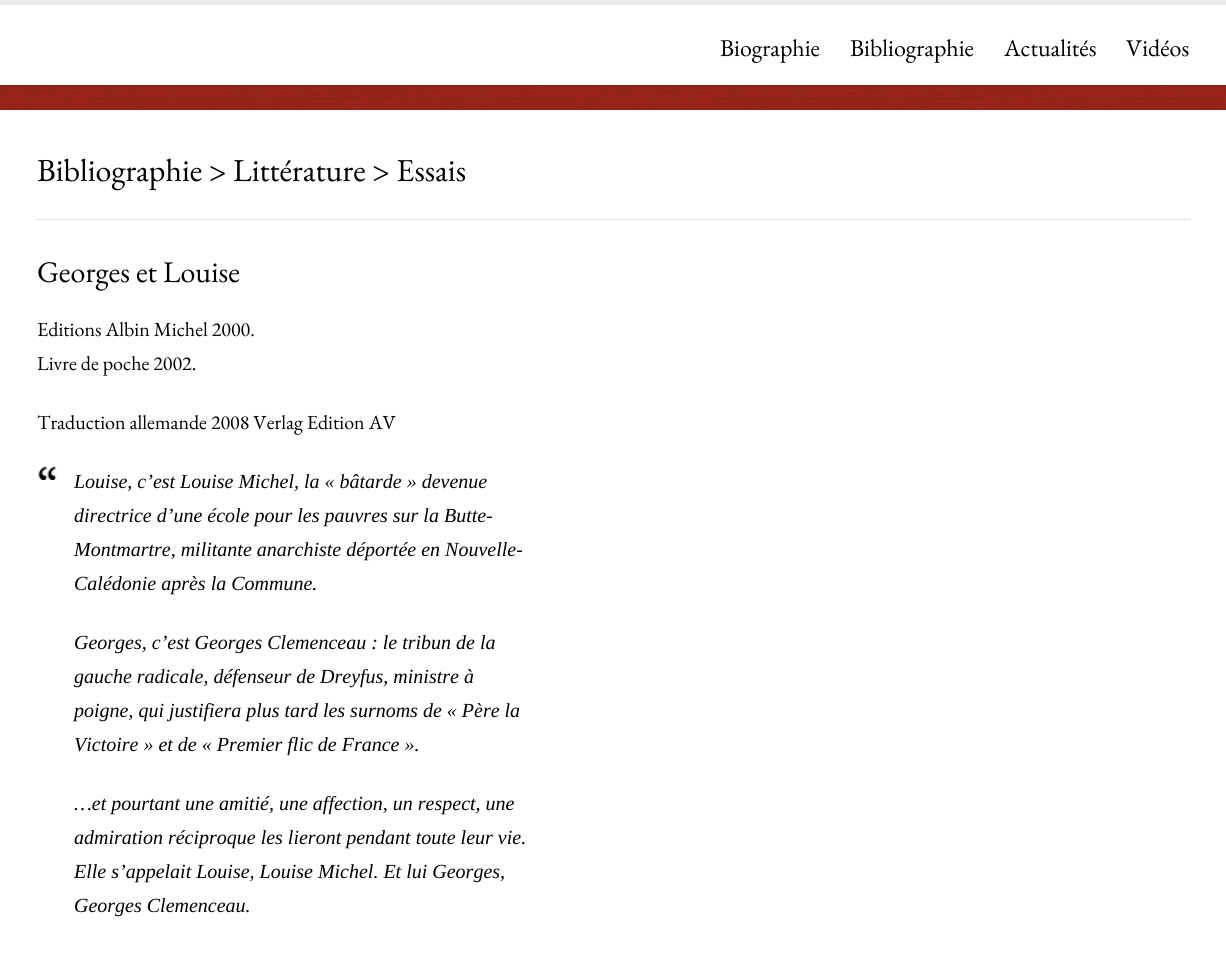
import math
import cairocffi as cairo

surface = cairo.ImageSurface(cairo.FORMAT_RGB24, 1226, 969)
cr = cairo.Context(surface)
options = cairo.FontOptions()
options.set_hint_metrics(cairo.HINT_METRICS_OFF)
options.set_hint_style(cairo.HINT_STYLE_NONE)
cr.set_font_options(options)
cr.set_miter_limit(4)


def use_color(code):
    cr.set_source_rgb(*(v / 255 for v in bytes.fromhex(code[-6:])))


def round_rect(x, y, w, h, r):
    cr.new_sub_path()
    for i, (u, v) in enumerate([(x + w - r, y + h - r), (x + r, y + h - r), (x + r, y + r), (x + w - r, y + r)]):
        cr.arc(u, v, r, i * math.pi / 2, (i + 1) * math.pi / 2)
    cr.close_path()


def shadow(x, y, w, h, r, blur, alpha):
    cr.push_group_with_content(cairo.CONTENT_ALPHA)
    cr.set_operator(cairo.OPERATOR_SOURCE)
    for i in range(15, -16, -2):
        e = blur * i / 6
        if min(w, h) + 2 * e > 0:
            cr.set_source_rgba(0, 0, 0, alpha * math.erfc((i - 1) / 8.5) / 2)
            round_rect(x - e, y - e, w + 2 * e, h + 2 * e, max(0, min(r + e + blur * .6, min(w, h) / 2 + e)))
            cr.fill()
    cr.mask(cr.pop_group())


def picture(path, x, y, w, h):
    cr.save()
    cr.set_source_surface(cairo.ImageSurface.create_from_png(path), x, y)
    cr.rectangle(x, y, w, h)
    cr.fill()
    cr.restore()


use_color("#ffffff")
cr.paint()
picture("img1.png", 0, 85, 1226, 25)
use_color("#000000")
shadow(0, 1, 1226, 85, 0, 0.5, 0.1)
use_color("#ffffff")
cr.rectangle(0, 5, 1226, 80)
cr.fill()
use_color("#eaeaea")
cr.rectangle(0, 0, 1226, 5)
cr.fill()
cr.select_font_face("EB Garamond")
cr.set_font_size(24)
use_color("#000000")
cr.move_to(720, 56)
cr.show_text("Biographie")
cr.move_to(850, 56)
cr.show_text("Bibliographie")
cr.move_to(1004, 56)
cr.show_text("Actualités")
cr.move_to(1126, 56)
cr.show_text("Vidéos")
picture("img2.png", 36, 218, 1154, 2)
cr.set_font_size(32)
cr.move_to(37, 181)
cr.show_text("Bibliographie > Littérature > Essais")
cr.set_font_size(30)
cr.move_to(37, 282)
cr.show_text("Georges et Louise")
cr.set_font_size(20)
cr.move_to(37, 336)
cr.show_text("Editions Albin Michel 2000.")
cr.move_to(37, 370)
cr.show_text("Livre de poche 2002.")
cr.move_to(37, 429)
cr.show_text("Traduction allemande 2008 Verlag Edition AV")
picture("img3.png", 38, 466, 19, 14)
cr.select_font_face("Liberation Serif", cairo.FONT_SLANT_ITALIC)
cr.move_to(74, 488)
cr.show_text("Louise, c’est Louise Michel, la « bâtarde » devenue")
cr.move_to(74, 522)
cr.show_text("directrice d’une école pour les pauvres sur la Butte-")
cr.move_to(74, 556)
cr.show_text("Montmartre, militante anarchiste déportée en Nouvelle-")
cr.move_to(74, 590)
cr.show_text("Calédonie après la Commune.")
cr.move_to(74, 649)
cr.show_text("Georges, c’est Georges Clemenceau : le tribun de la")
cr.move_to(74, 683)
cr.show_text("gauche radicale, défenseur de Dreyfus, ministre à")
cr.move_to(74, 717)
cr.show_text("poigne, qui justifiera plus tard les surnoms de « Père la")
cr.move_to(74, 751)
cr.show_text("Victoire » et de « Premier flic de France ».")
cr.move_to(74, 810)
cr.show_text("…et pourtant une amitié, une affection, un respect, une")
cr.move_to(74, 844)
cr.show_text("admiration réciproque les lieront pendant toute leur vie.")
cr.move_to(74, 878)
cr.show_text("Elle s’appelait Louise, Louise Michel. Et lui Georges,")
cr.move_to(74, 912)
cr.show_text("Georges Clemenceau.")
surface.write_to_png("result.png")
